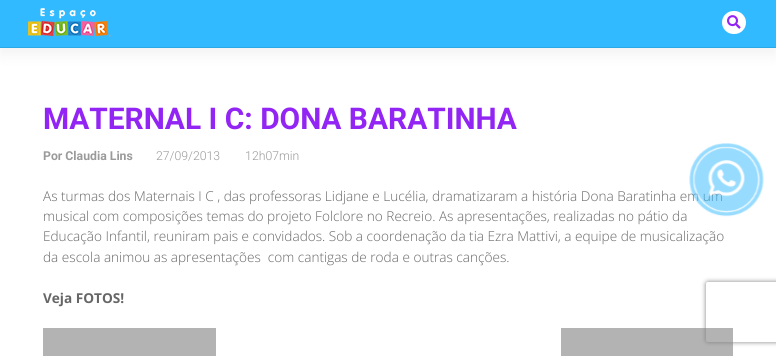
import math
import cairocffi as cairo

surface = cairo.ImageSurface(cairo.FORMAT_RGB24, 776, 356)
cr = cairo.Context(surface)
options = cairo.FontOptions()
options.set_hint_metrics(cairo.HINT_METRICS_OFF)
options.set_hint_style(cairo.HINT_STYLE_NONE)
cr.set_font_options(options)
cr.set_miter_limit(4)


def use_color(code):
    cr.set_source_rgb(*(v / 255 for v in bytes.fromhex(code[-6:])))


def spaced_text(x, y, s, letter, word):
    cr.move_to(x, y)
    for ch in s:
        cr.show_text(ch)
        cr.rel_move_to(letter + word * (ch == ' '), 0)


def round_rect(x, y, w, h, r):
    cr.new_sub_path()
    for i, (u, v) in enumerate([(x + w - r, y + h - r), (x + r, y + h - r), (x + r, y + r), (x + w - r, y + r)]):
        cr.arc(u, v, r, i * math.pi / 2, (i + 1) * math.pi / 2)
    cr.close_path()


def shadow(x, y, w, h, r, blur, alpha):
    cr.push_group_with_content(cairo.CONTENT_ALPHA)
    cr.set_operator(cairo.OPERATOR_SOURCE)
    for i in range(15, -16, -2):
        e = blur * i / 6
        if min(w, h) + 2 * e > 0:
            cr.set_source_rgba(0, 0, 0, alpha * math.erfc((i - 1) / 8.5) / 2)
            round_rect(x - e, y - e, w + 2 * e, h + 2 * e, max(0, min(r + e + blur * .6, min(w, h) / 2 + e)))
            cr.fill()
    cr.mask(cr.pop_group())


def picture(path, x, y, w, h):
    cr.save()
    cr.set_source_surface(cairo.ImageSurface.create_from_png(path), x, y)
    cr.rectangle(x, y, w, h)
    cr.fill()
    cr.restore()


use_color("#ffffff")
cr.paint()
use_color("#000000")
shadow(0, 7, 776, 48, 0, 7, 0.05)
use_color("#31baff")
cr.rectangle(0, 0, 776, 47)
cr.fill()
use_color("#2ca7e6")
cr.rectangle(0, 47, 776, 1)
cr.fill()
picture("img1.png", 28, 8, 83, 29)
use_color("#ffffff")
round_rect(722, 11, 24, 23, 11.5)
cr.fill()
picture("img2.png", 727, 15, 14, 14)
cr.select_font_face("Roboto", cairo.FONT_SLANT_NORMAL, cairo.FONT_WEIGHT_BOLD)
cr.set_font_size(29.9)
use_color("#9325f4")
cr.move_to(43, 129)
cr.show_text("MATERNAL I C: DONA BARATINHA")
cr.set_font_size(12.25)
use_color("#9a9a9a")
cr.move_to(43, 160)
cr.show_text("Por Claudia Lins")
cr.select_font_face("Roboto Light")
spaced_text(156, 160, "27/09/2013 12h07min", 0, 22)
cr.select_font_face("Open Sans Light")
cr.set_font_size(13.6)
use_color("#666666")
cr.move_to(43, 201)
cr.show_text("As turmas dos Maternais I C , das professoras Lidjane e Lucélia, dramatizaram a história Dona Baratinha em um")
cr.move_to(43, 221)
cr.show_text("musical com composições temas do projeto Folclore no Recreio. As apresentações, realizadas no pátio da")
cr.move_to(43, 241)
cr.show_text("Educação Infantil, reuniram pais e convidados. Sob a coordenação da tia Ezra Mattivi, a equipe de musicalização")
cr.move_to(43, 262)
cr.show_text("da escola animou as apresentações  com cantigas de roda e outras canções.")
cr.select_font_face("Open Sans", cairo.FONT_SLANT_NORMAL, cairo.FONT_WEIGHT_BOLD)
cr.move_to(43, 303)
cr.show_text("Veja FOTOS!")
use_color("#b3b3b3")
cr.rectangle(43, 328, 173, 28)
cr.fill()
cr.rectangle(561, 328, 172, 28)
cr.fill()
picture("img3.png", 689, 143, 75, 74)
cr.save()
cr.set_fill_rule(cairo.FILL_RULE_EVEN_ODD)
cr.new_path()
cr.move_to(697, 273)
cr.line_to(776, 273)
cr.line_to(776, 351)
cr.line_to(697, 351)
cr.close_path()
cr.move_to(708, 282)
cr.line_to(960, 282)
cr.curve_to(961, 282, 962, 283, 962, 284)
cr.line_to(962, 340)
cr.curve_to(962, 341, 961, 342, 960, 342)
cr.line_to(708, 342)
cr.curve_to(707, 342, 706, 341, 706, 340)
cr.line_to(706, 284)
cr.curve_to(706, 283, 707, 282, 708, 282)
cr.close_path()
cr.clip()
use_color("#808080")
shadow(706, 282, 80, 60, 2, 2.5, 1)
cr.restore()
surface.write_to_png("result.png")
